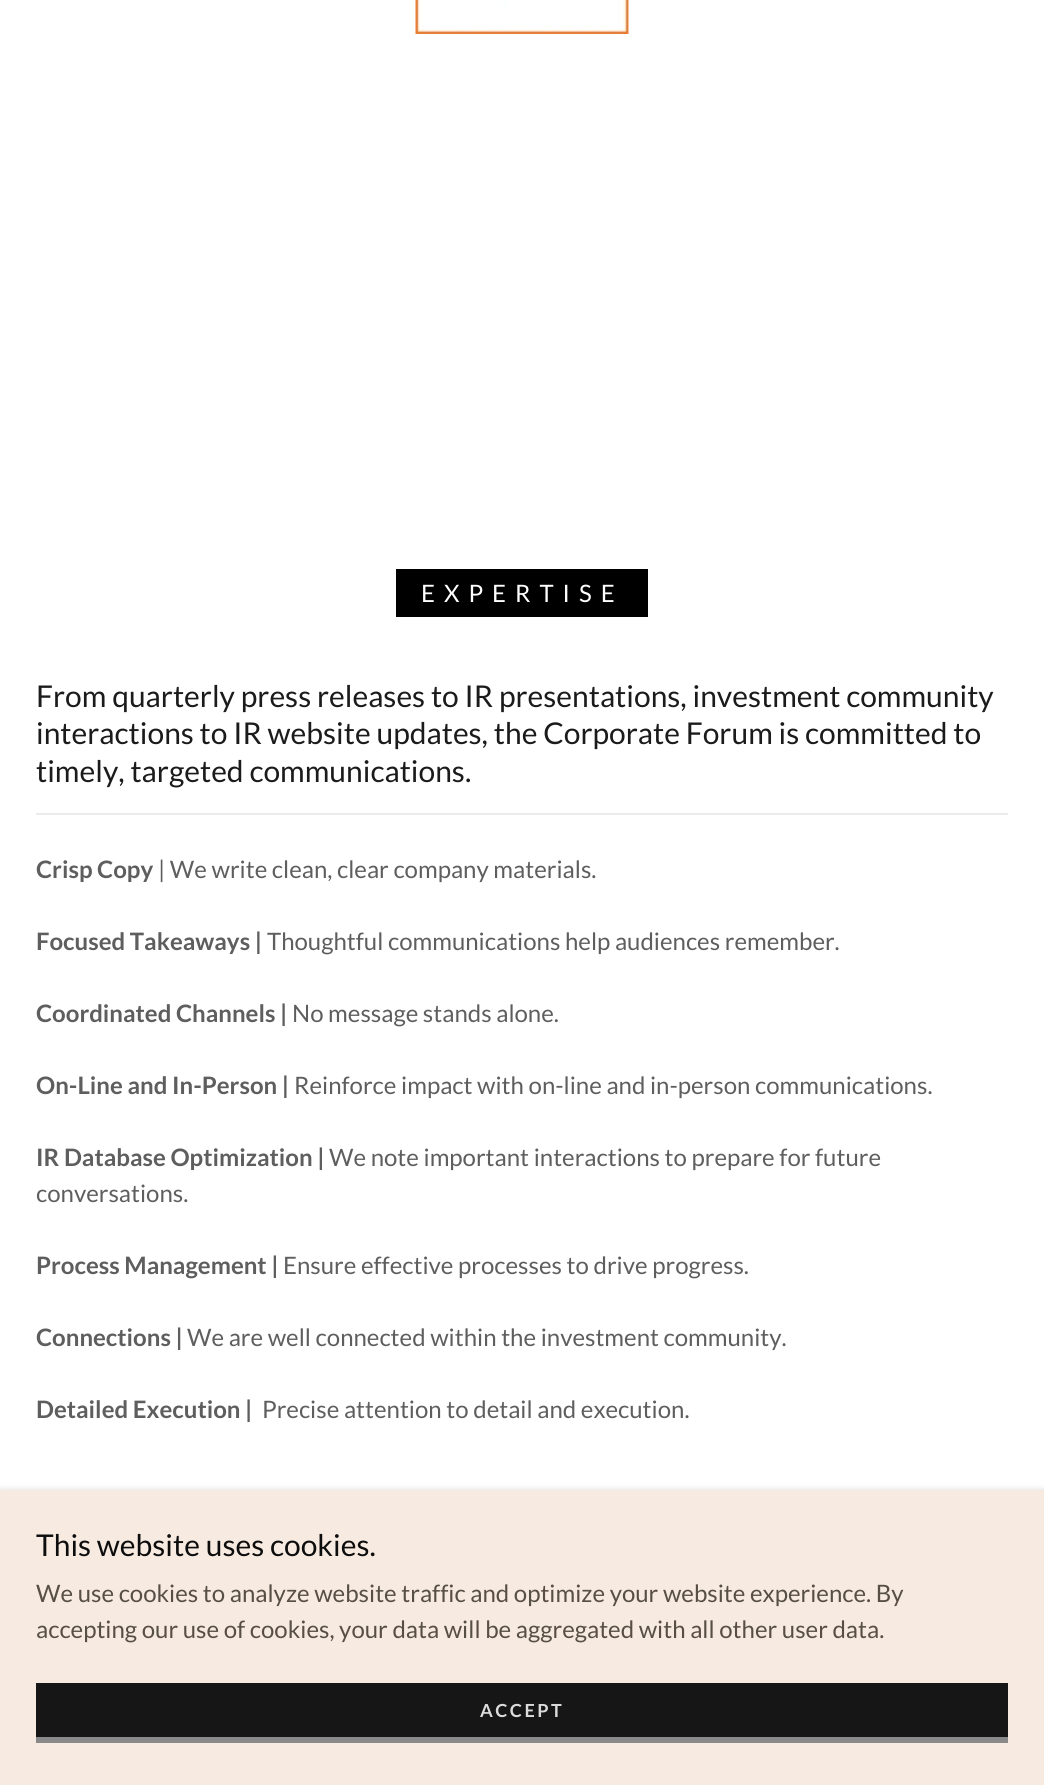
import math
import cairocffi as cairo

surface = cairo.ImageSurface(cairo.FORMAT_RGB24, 1044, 1785)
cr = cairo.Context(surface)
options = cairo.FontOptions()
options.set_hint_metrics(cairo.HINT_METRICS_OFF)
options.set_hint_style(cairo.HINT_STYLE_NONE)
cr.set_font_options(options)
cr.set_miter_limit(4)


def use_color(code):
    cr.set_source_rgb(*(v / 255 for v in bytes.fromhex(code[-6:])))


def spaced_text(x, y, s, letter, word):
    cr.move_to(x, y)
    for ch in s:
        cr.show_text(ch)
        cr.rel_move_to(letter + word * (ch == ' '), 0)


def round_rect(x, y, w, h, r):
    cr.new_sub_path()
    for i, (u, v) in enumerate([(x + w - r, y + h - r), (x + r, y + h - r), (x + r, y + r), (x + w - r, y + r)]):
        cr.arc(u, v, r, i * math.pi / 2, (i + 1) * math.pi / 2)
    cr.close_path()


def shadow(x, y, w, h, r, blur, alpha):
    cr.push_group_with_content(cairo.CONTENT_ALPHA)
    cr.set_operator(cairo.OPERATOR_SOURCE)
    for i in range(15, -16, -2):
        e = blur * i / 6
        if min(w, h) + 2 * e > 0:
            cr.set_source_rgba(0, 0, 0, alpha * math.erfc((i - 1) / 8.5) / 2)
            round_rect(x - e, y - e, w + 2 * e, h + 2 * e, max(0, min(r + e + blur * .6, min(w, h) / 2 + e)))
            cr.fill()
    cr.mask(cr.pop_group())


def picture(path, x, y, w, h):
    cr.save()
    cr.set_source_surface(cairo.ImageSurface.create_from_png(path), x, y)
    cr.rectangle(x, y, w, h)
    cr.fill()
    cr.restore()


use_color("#ffffff")
cr.paint()
picture("img1.png", 415, 0, 214, 34)
use_color("#000000")
cr.rectangle(396, 569, 252, 48)
cr.fill()
cr.select_font_face("Lato")
cr.set_font_size(24)
use_color("#ffffff")
spaced_text(421, 602, "EXPERTISE", 9, 0)
use_color("#ebebeb")
cr.rectangle(36, 813, 972, 2)
cr.fill()
cr.set_font_size(30)
use_color("#1b1b1b")
cr.move_to(36, 707)
cr.show_text("From quarterly press releases to IR presentations, investment community")
cr.move_to(36, 744)
cr.show_text("interactions to IR website updates, the Corporate Forum is committed to")
cr.move_to(36, 782)
cr.show_text("timely, targeted communications.")
cr.select_font_face("Lato", cairo.FONT_SLANT_NORMAL, cairo.FONT_WEIGHT_BOLD)
cr.set_font_size(24)
use_color("#5e5e5e")
cr.move_to(36, 878)
cr.show_text("Crisp Copy")
cr.select_font_face("Lato")
cr.move_to(158, 878)
cr.show_text("| We write clean, clear company materials.")
cr.select_font_face("Lato", cairo.FONT_SLANT_NORMAL, cairo.FONT_WEIGHT_BOLD)
cr.move_to(36, 950)
cr.show_text("Focused Takeaways |")
cr.select_font_face("Lato")
cr.move_to(267, 950)
cr.show_text("Thoughtful communications help audiences remember.")
cr.select_font_face("Lato", cairo.FONT_SLANT_NORMAL, cairo.FONT_WEIGHT_BOLD)
cr.move_to(36, 1022)
cr.show_text("Coordinated Channels |")
cr.select_font_face("Lato")
cr.move_to(292, 1022)
cr.show_text("No message stands alone.")
cr.select_font_face("Lato", cairo.FONT_SLANT_NORMAL, cairo.FONT_WEIGHT_BOLD)
cr.move_to(36, 1094)
cr.show_text("On-Line and In-Person |")
cr.select_font_face("Lato")
cr.move_to(294, 1094)
cr.show_text("Reinforce impact with on-line and in-person communications.")
cr.select_font_face("Lato", cairo.FONT_SLANT_NORMAL, cairo.FONT_WEIGHT_BOLD)
cr.move_to(36, 1166)
cr.show_text("IR Database Optimization |")
cr.select_font_face("Lato")
cr.move_to(329, 1166)
cr.show_text("We note important interactions to prepare for future")
cr.move_to(36, 1202)
cr.show_text("conversations.")
cr.select_font_face("Lato", cairo.FONT_SLANT_NORMAL, cairo.FONT_WEIGHT_BOLD)
cr.move_to(36, 1274)
cr.show_text("Process Management |")
cr.select_font_face("Lato")
cr.move_to(283, 1274)
cr.show_text("Ensure effective processes to drive progress.")
cr.select_font_face("Lato", cairo.FONT_SLANT_NORMAL, cairo.FONT_WEIGHT_BOLD)
cr.move_to(36, 1346)
cr.show_text("Connections |")
cr.select_font_face("Lato")
cr.move_to(187, 1346)
cr.show_text("We are well connected within the investment community.")
cr.select_font_face("Lato", cairo.FONT_SLANT_NORMAL, cairo.FONT_WEIGHT_BOLD)
cr.move_to(36, 1418)
cr.show_text("Detailed Execution |")
cr.select_font_face("Lato")
cr.move_to(262, 1418)
cr.show_text("Precise attention to detail and execution.")
use_color("#000000")
shadow(0, 1493, 1044, 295, 0, 4.5, 0.3)
use_color("#f7ebe1")
cr.rectangle(0, 1490, 1044, 295)
cr.fill()
cr.set_font_size(30)
use_color("#0e0d0d")
cr.move_to(36, 1556)
cr.show_text("This website uses cookies.")
cr.set_font_size(24)
use_color("#574e46")
cr.move_to(36, 1602)
cr.show_text("We use cookies to analyze website traffic and optimize your website experience. By")
cr.move_to(36, 1638)
cr.show_text("accepting our use of cookies, your data will be aggregated with all other user data.")
use_color("#161616")
cr.rectangle(36, 1683, 972, 54)
cr.fill()
use_color("#898989")
cr.rectangle(36, 1737, 972, 6)
cr.fill()
cr.select_font_face("Lato", cairo.FONT_SLANT_NORMAL, cairo.FONT_WEIGHT_BOLD)
cr.set_font_size(18)
use_color("#dbdbdb")
spaced_text(480, 1717, "ACCEPT", 2.5, 0)
surface.write_to_png("result.png")
